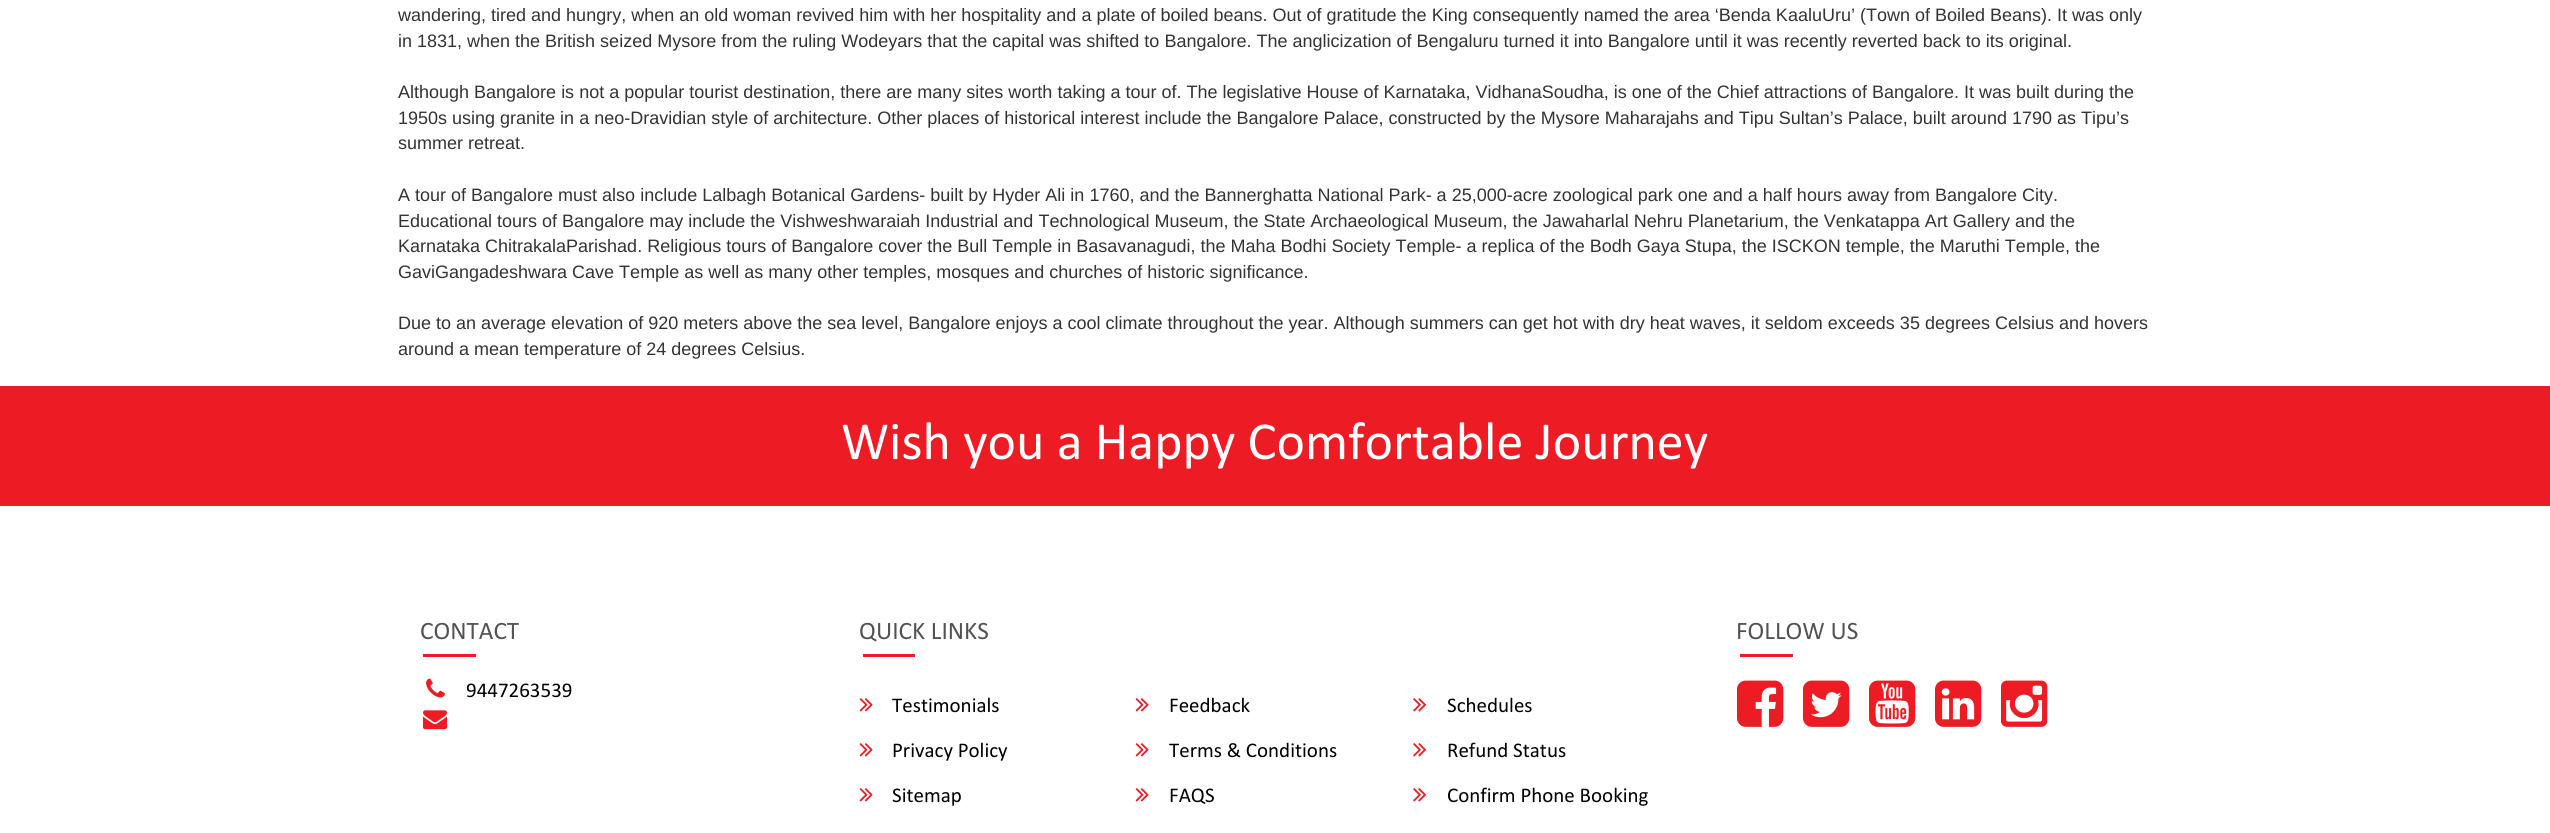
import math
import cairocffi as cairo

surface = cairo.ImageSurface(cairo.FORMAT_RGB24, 2550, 833)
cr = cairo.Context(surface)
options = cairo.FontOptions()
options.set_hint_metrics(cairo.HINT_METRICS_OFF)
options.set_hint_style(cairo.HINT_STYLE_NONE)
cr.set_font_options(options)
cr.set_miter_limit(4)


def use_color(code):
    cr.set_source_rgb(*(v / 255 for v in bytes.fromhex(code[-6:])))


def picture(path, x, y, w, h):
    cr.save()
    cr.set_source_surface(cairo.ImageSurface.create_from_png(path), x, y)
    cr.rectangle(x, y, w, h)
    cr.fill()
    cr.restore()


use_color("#ffffff")
cr.paint()
cr.select_font_face("Liberation Sans")
cr.set_font_size(18)
use_color("#333333")
cr.move_to(398, 21)
cr.show_text("wandering, tired and hungry, when an old woman revived him with her hospitality and a plate of boiled beans. Out of gratitude the King consequently named the area ‘Benda KaaluUru’ (Town of Boiled Beans). It was only")
cr.move_to(398, 47)
cr.show_text("in 1831, when the British seized Mysore from the ruling Wodeyars that the capital was shifted to Bangalore. The anglicization of Bengaluru turned it into Bangalore until it was recently reverted back to its original.")
cr.move_to(398, 98)
cr.show_text("Although Bangalore is not a popular tourist destination, there are many sites worth taking a tour of. The legislative House of Karnataka, VidhanaSoudha, is one of the Chief attractions of Bangalore. It was built during the")
cr.move_to(398, 124)
cr.show_text("1950s using granite in a neo-Dravidian style of architecture. Other places of historical interest include the Bangalore Palace, constructed by the Mysore Maharajahs and Tipu Sultan’s Palace, built around 1790 as Tipu’s")
cr.move_to(398, 149)
cr.show_text("summer retreat.")
cr.move_to(398, 201)
cr.show_text("A tour of Bangalore must also include Lalbagh Botanical Gardens- built by Hyder Ali in 1760, and the Bannerghatta National Park- a 25,000-acre zoological park one and a half hours away from Bangalore City.")
cr.move_to(398, 227)
cr.show_text("Educational tours of Bangalore may include the Vishweshwaraiah Industrial and Technological Museum, the State Archaeological Museum, the Jawaharlal Nehru Planetarium, the Venkatappa Art Gallery and the")
cr.move_to(398, 252)
cr.show_text("Karnataka ChitrakalaParishad. Religious tours of Bangalore cover the Bull Temple in Basavanagudi, the Maha Bodhi Society Temple- a replica of the Bodh Gaya Stupa, the ISCKON temple, the Maruthi Temple, the")
cr.move_to(398, 278)
cr.show_text("GaviGangadeshwara Cave Temple as well as many other temples, mosques and churches of historic significance.")
cr.move_to(398, 329)
cr.show_text("Due to an average elevation of 920 meters above the sea level, Bangalore enjoys a cool climate throughout the year. Although summers can get hot with dry heat waves, it seldom exceeds 35 degrees Celsius and hovers")
cr.move_to(398, 355)
cr.show_text("around a mean temperature of 24 degrees Celsius.")
use_color("#ed1b24")
cr.rectangle(0, 386, 2550, 120)
cr.fill()
cr.select_font_face("Calibri")
cr.set_font_size(54)
use_color("#ffffff")
cr.move_to(841, 459)
cr.show_text("Wish you a Happy Comfortable Journey")
cr.set_font_size(25.25)
use_color("#525252")
cr.move_to(420, 639)
cr.show_text("CONTACT")
use_color("#ed1b24")
cr.rectangle(423, 654, 53, 3)
cr.fill()
picture("img1.png", 426, 678, 19, 20)
cr.set_font_size(21)
use_color("#000000")
cr.move_to(466, 697)
cr.show_text("9447263539")
picture("img2.png", 423, 710, 24, 20)
cr.set_font_size(25.25)
use_color("#525252")
cr.move_to(859, 639)
cr.show_text("QUICK LINKS")
use_color("#ed1b24")
cr.rectangle(863, 654, 52, 3)
cr.fill()
picture("img3.png", 859, 698, 14, 14)
cr.set_font_size(21)
use_color("#000000")
cr.move_to(892, 712)
cr.show_text("Testimonials")
picture("img3.png", 1135, 698, 14, 14)
cr.move_to(1169, 712)
cr.show_text("Feedback")
picture("img4.png", 1413, 698, 14, 14)
cr.move_to(1447, 712)
cr.show_text("Schedules")
picture("img3.png", 859, 743, 14, 14)
cr.move_to(892, 757)
cr.show_text("Privacy Policy")
picture("img3.png", 1135, 743, 14, 14)
cr.move_to(1169, 757)
cr.show_text("Terms & Conditions")
picture("img4.png", 1413, 743, 14, 14)
cr.move_to(1447, 757)
cr.show_text("Refund Status")
picture("img3.png", 859, 788, 14, 14)
cr.move_to(892, 802)
cr.show_text("Sitemap")
picture("img3.png", 1135, 788, 14, 14)
cr.move_to(1169, 802)
cr.show_text("FAQS")
picture("img4.png", 1413, 788, 14, 14)
cr.move_to(1447, 802)
cr.show_text("Confirm Phone Booking")
cr.set_font_size(25.25)
use_color("#525252")
cr.move_to(1736, 639)
cr.show_text("FOLLOW US")
use_color("#ed1b24")
cr.rectangle(1740, 654, 53, 3)
cr.fill()
picture("img5.png", 1737, 680, 47, 47)
picture("img6.png", 1803, 680, 47, 47)
picture("img7.png", 1869, 680, 47, 47)
picture("img8.png", 1935, 680, 47, 47)
picture("img9.png", 2001, 680, 47, 47)
surface.write_to_png("result.png")
